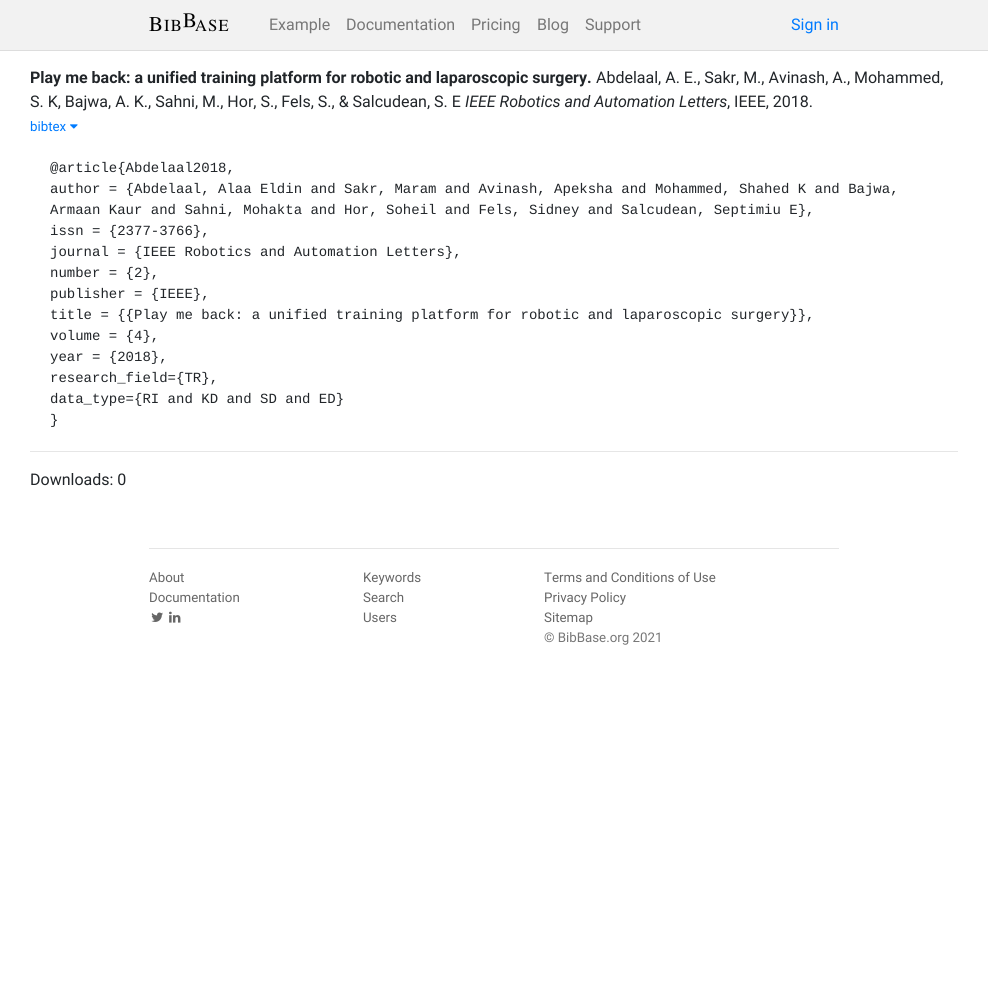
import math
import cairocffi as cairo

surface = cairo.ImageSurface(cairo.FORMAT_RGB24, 988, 988)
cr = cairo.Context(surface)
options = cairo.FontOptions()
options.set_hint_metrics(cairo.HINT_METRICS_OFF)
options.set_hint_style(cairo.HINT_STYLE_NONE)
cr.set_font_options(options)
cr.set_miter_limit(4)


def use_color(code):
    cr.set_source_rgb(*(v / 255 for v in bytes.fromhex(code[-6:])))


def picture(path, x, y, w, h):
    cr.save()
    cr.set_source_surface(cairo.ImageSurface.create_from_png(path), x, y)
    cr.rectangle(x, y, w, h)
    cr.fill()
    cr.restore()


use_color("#ffffff")
cr.paint()
use_color("#f2f2f2")
cr.rectangle(0, 0, 988, 50)
cr.fill()
use_color("#dddddd")
cr.rectangle(0, 50, 988, 1)
cr.fill()
picture("img1.png", 149, 13, 80, 19)
cr.select_font_face("Roboto")
cr.set_font_size(16)
use_color("#777777")
cr.move_to(269, 30)
cr.show_text("Example")
cr.move_to(346, 30)
cr.show_text("Documentation")
cr.move_to(471, 30)
cr.show_text("Pricing")
cr.move_to(537, 30)
cr.show_text("Blog")
cr.move_to(585, 30)
cr.show_text("Support")
use_color("#007bff")
cr.move_to(791, 30)
cr.show_text("Sign in")
cr.select_font_face("Roboto", cairo.FONT_SLANT_NORMAL, cairo.FONT_WEIGHT_BOLD)
use_color("#212529")
cr.move_to(30, 83)
cr.show_text("Play me back: a unified training platform for robotic and laparoscopic surgery.")
cr.select_font_face("Roboto")
cr.move_to(596, 83)
cr.show_text("Abdelaal, A. E., Sakr, M., Avinash, A., Mohammed,")
cr.move_to(30, 107)
cr.show_text("S. K, Bajwa, A. K., Sahni, M., Hor, S., Fels, S., & Salcudean, S. E")
cr.select_font_face("Roboto", cairo.FONT_SLANT_ITALIC)
cr.move_to(465, 107)
cr.show_text("IEEE Robotics and Automation Letters")
cr.select_font_face("Roboto")
cr.move_to(727, 107)
cr.show_text(", IEEE, 2018.")
cr.set_font_size(13.3)
use_color("#007bff")
cr.move_to(30, 131)
cr.show_text("bibtex")
picture("img2.png", 70, 124, 8, 5)
cr.select_font_face("Liberation Mono")
cr.set_font_size(14)
use_color("#212529")
cr.move_to(50, 172)
cr.show_text("@article{Abdelaal2018,")
cr.move_to(50, 193)
cr.show_text("author = {Abdelaal, Alaa Eldin and Sakr, Maram and Avinash, Apeksha and Mohammed, Shahed K and Bajwa,")
cr.move_to(50, 214)
cr.show_text("Armaan Kaur and Sahni, Mohakta and Hor, Soheil and Fels, Sidney and Salcudean, Septimiu E},")
cr.move_to(50, 235)
cr.show_text("issn = {2377-3766},")
cr.move_to(50, 256)
cr.show_text("journal = {IEEE Robotics and Automation Letters},")
cr.move_to(50, 277)
cr.show_text("number = {2},")
cr.move_to(50, 298)
cr.show_text("publisher = {IEEE},")
cr.move_to(50, 319)
cr.show_text("title = {{Play me back: a unified training platform for robotic and laparoscopic surgery}},")
cr.move_to(50, 340)
cr.show_text("volume = {4},")
cr.move_to(50, 361)
cr.show_text("year = {2018},")
cr.move_to(50, 382)
cr.show_text("research_field={TR},")
cr.move_to(50, 403)
cr.show_text("data_type={RI and KD and SD and ED}")
cr.move_to(50, 424)
cr.show_text("}")
use_color("#e6e6e6")
cr.rectangle(30, 451, 928, 1)
cr.fill()
cr.select_font_face("Roboto")
cr.set_font_size(16)
use_color("#212529")
cr.move_to(30, 485)
cr.show_text("Downloads: 0")
use_color("#e5e5e5")
cr.rectangle(149, 548, 690, 1)
cr.fill()
cr.set_font_size(13.3)
use_color("#666666")
cr.move_to(149, 582)
cr.show_text("About")
cr.move_to(149, 602)
cr.show_text("Documentation")
picture("img3.png", 151, 612, 12, 10)
picture("img4.png", 169, 611, 12, 12)
cr.move_to(363, 582)
cr.show_text("Keywords")
cr.move_to(363, 602)
cr.show_text("Search")
cr.move_to(363, 622)
cr.show_text("Users")
cr.move_to(544, 582)
cr.show_text("Terms and Conditions of Use")
cr.move_to(544, 602)
cr.show_text("Privacy Policy")
cr.move_to(544, 622)
cr.show_text("Sitemap")
use_color("#777777")
cr.move_to(544, 642)
cr.show_text("© BibBase.org 2021")
surface.write_to_png("result.png")
